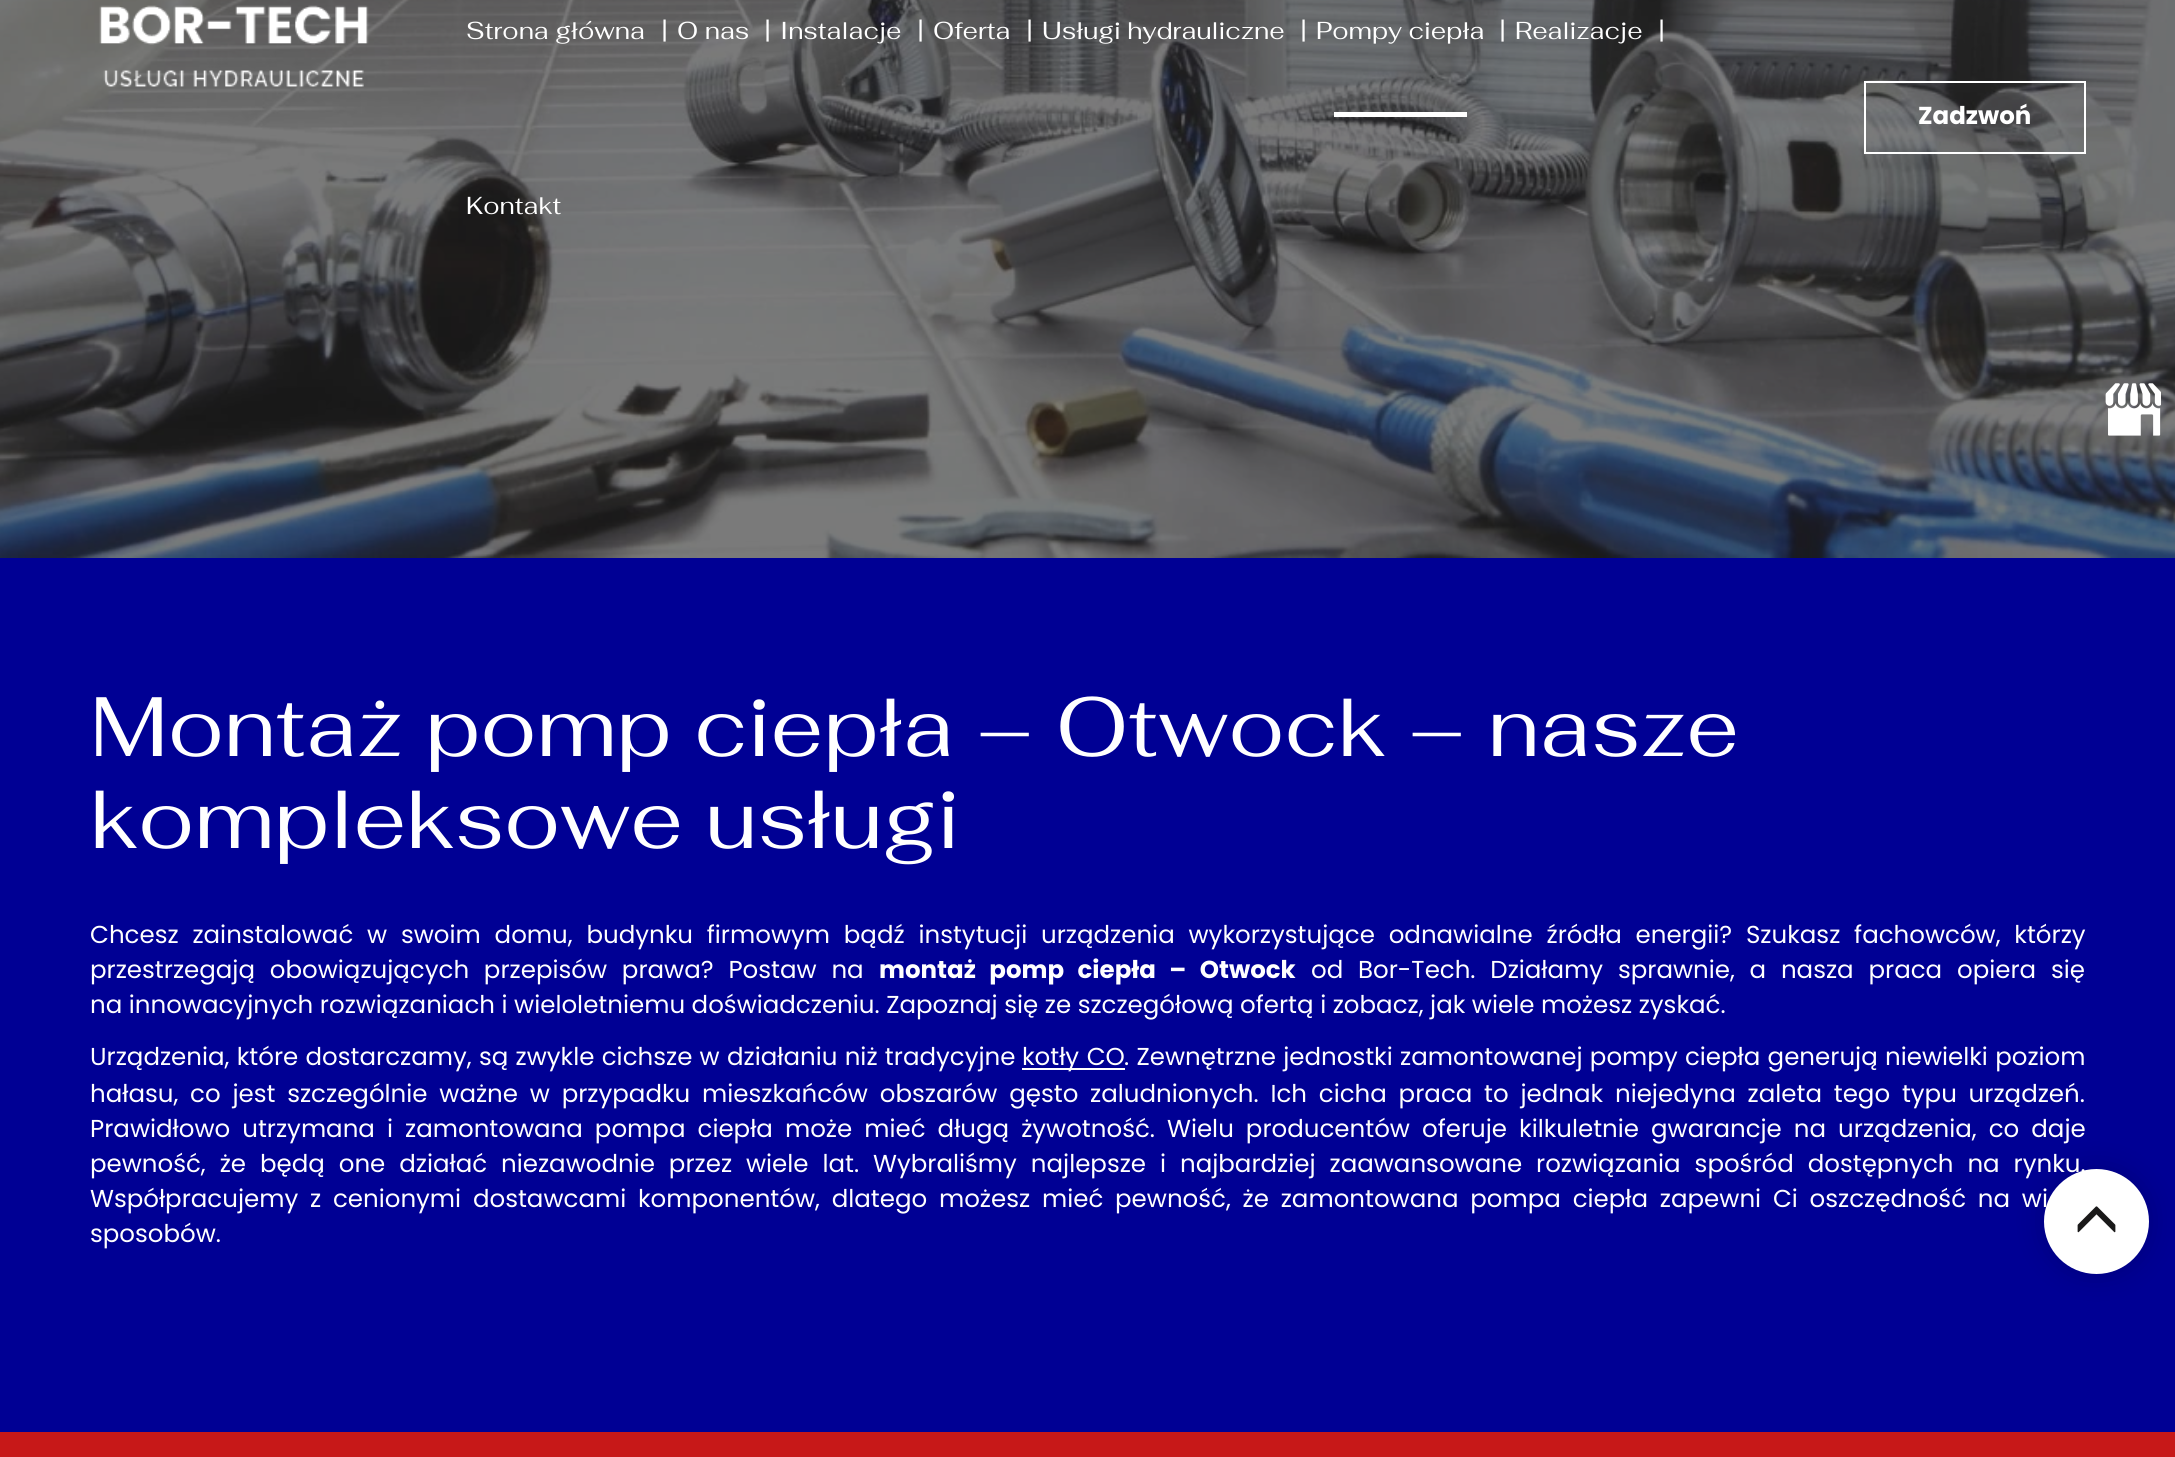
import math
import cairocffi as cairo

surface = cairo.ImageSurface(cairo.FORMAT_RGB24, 2175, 1457)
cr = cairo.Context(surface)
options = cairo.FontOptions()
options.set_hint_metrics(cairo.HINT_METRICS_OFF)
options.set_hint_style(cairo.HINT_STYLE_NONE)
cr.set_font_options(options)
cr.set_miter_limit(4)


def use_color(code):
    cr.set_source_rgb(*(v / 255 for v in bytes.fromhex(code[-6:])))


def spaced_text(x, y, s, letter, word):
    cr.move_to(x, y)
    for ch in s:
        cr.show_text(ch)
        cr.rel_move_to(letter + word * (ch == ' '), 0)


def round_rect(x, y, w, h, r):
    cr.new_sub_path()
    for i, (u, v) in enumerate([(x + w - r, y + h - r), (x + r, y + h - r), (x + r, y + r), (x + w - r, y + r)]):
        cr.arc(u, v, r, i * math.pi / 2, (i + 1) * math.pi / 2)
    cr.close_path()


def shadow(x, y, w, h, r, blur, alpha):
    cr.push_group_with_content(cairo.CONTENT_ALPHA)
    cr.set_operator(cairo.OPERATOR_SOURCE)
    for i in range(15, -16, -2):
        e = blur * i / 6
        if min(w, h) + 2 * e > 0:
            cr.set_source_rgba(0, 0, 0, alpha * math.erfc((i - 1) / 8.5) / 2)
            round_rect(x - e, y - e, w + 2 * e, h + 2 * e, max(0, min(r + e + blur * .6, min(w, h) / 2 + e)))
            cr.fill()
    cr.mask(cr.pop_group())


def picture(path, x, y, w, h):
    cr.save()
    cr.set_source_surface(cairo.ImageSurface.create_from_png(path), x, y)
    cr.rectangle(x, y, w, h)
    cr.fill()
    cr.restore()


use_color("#000094")
cr.paint()
picture("img4.png", 0, 0, 2175, 558)
picture("img1.png", 99, 5, 270, 82)
cr.select_font_face("Fahkwang")
cr.set_font_size(24.5)
use_color("#ffffff")
cr.move_to(466, 39)
cr.show_text("Strona główna")
cr.select_font_face("Poppins")
cr.move_to(661, 39)
cr.show_text("|")
cr.select_font_face("Fahkwang")
cr.move_to(677, 39)
cr.show_text("O nas")
cr.select_font_face("Poppins")
cr.move_to(764, 39)
cr.show_text("|")
cr.select_font_face("Fahkwang")
cr.move_to(780, 39)
cr.show_text("Instalacje")
cr.select_font_face("Poppins")
cr.move_to(917, 39)
cr.show_text("|")
cr.select_font_face("Fahkwang")
cr.move_to(933, 39)
cr.show_text("Oferta")
cr.select_font_face("Poppins")
cr.move_to(1026, 39)
cr.show_text("|")
cr.select_font_face("Fahkwang")
cr.move_to(1042, 39)
cr.show_text("Usługi hydrauliczne")
cr.select_font_face("Poppins")
cr.move_to(1300, 39)
cr.show_text("|")
cr.select_font_face("Fahkwang")
cr.move_to(1316, 39)
cr.show_text("Pompy ciepła")
cr.rectangle(1334, 112, 133, 5)
cr.fill()
cr.select_font_face("Poppins")
cr.move_to(1499, 39)
cr.show_text("|")
cr.select_font_face("Fahkwang")
cr.move_to(1515, 39)
cr.show_text("Realizacje")
cr.select_font_face("Poppins")
cr.move_to(1658, 39)
cr.show_text("|")
cr.select_font_face("Fahkwang")
cr.move_to(466, 214)
cr.show_text("Kontakt")
cr.rectangle(1865, 82, 220, 71)
cr.stroke()
cr.select_font_face("Poppins", cairo.FONT_SLANT_NORMAL, cairo.FONT_WEIGHT_BOLD)
cr.move_to(1918, 124)
cr.show_text("Zadzwoń")
picture("img2.png", 2105, 383, 56, 53)
use_color("#000000")
shadow(2042, 1167, 109, 109, 54.5, 14, 0.15)
use_color("#ffffff")
cr.arc(2096.5, 1221.5, 52.5, 0, 2 * math.pi)
cr.fill()
picture("img3.png", 2077, 1206, 39, 27)
use_color("#c71818")
cr.rectangle(0, 1432, 2175, 25)
cr.fill()
cr.select_font_face("Fahkwang")
cr.set_font_size(84)
use_color("#ffffff")
cr.move_to(90, 756)
cr.show_text("Montaż pomp ciepła – Otwock – nasze")
cr.move_to(90, 848)
cr.show_text("kompleksowe usługi")
cr.select_font_face("Poppins")
cr.set_font_size(24.5)
spaced_text(90, 943, "Chcesz zainstalować w swoim domu, budynku firmowym bądź instytucji urządzenia wykorzystujące odnawialne źródła energii? Szukasz fachowców, którzy", 0, 7.25)
spaced_text(90, 978, "przestrzegają obowiązujących przepisów prawa? Postaw na", 0, 8.25)
cr.select_font_face("Poppins", cairo.FONT_SLANT_NORMAL, cairo.FONT_WEIGHT_BOLD)
spaced_text(879, 978, "montaż pomp ciepła – Otwock", 0, 8.25)
cr.select_font_face("Poppins")
spaced_text(1311, 978, "od Bor-Tech. Działamy sprawnie, a nasza praca opiera się", 0, 8.25)
cr.move_to(90, 1013)
cr.show_text("na innowacyjnych rozwiązaniach i wieloletniemu doświadczeniu. Zapoznaj się ze szczegółową ofertą i zobacz, jak wiele możesz zyskać.")
spaced_text(90, 1065, "Urządzenia, które dostarczamy, są zwykle cichsze w działaniu niż tradycyjne", 0, 0.75)
cr.rectangle(1022, 1068, 103, 2)
cr.fill()
spaced_text(1022, 1065, "kotły CO", 0, 1)
spaced_text(1124, 1065, ". Zewnętrzne jednostki zamontowanej pompy ciepła generują niewielki poziom", 0, 0.75)
spaced_text(90, 1102, "hałasu, co jest szczególnie ważne w przypadku mieszkańców obszarów gęsto zaludnionych. Ich cicha praca to jednak niejedyna zaleta tego typu urządzeń.", 0, 5.25)
spaced_text(90, 1137, "Prawidłowo utrzymana i zamontowana pompa ciepła może mieć długą żywotność. Wielu producentów oferuje kilkuletnie gwarancje na urządzenia, co daje", 0, 5.5)
spaced_text(90, 1172, "pewność, że będą one działać niezawodnie przez wiele lat. Wybraliśmy najlepsze i najbardziej zaawansowane rozwiązania spośród dostępnych na rynku.", 0, 7.4)
spaced_text(90, 1207, "Współpracujemy z cenionymi dostawcami komponentów, dlatego możesz mieć pewność, że zamontowana pompa ciepła zapewni Ci oszczędność na wi", 0, 5.25)
cr.move_to(90, 1242)
cr.show_text("sposobów.")
surface.write_to_png("result.png")
